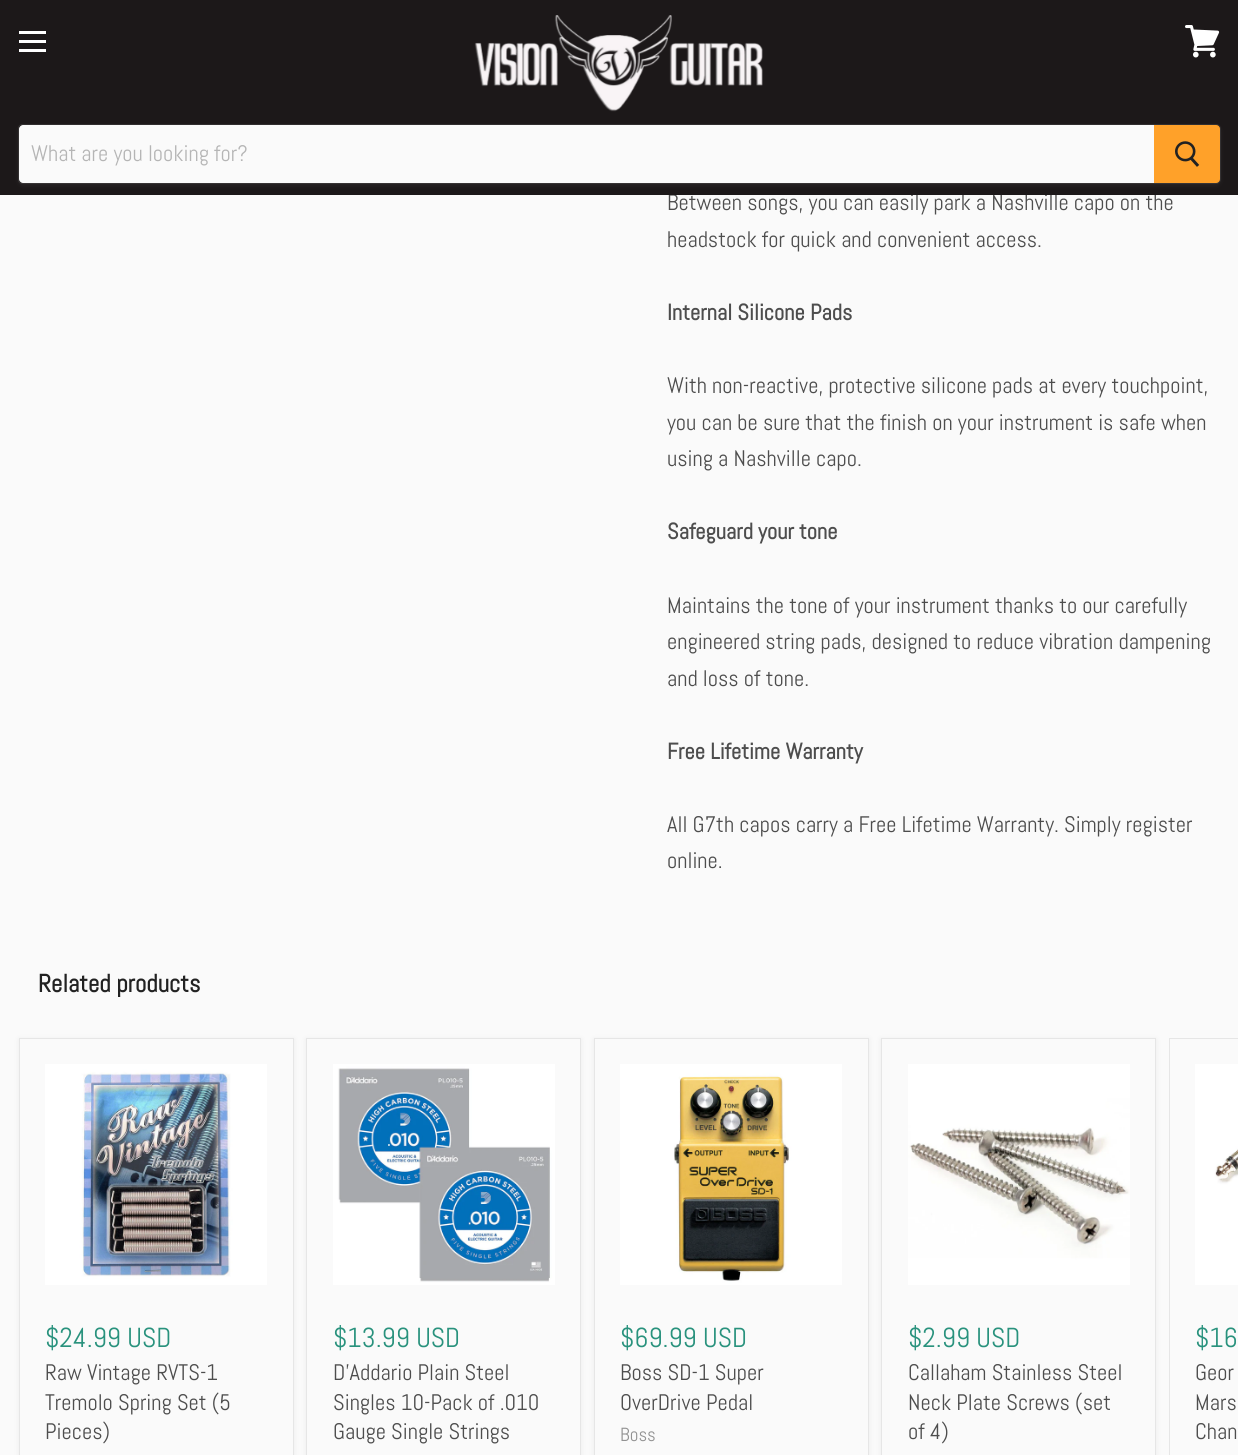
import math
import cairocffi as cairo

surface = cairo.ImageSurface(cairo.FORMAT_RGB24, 1238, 1455)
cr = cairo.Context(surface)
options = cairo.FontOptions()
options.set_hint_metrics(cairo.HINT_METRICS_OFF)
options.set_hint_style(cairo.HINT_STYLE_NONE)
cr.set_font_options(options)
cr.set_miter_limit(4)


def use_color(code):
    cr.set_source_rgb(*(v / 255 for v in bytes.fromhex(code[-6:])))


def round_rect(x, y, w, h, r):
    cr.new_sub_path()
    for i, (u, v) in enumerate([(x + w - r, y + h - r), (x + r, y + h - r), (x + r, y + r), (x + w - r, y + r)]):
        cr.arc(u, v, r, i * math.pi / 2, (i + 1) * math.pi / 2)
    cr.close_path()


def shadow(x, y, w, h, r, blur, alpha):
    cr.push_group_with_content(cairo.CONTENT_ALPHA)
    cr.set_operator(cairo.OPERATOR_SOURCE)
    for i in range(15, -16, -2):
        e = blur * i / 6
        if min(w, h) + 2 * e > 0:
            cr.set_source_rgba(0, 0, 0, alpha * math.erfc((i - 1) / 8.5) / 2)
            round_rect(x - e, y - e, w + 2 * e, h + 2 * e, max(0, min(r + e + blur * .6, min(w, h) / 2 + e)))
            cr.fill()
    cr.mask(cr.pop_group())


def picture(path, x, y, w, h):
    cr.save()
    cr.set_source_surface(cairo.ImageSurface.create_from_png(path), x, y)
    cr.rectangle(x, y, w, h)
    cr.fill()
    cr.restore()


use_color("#fafafa")
cr.paint()
cr.select_font_face("Abel")
cr.set_font_size(22.5)
use_color("#4d4d4d")
cr.move_to(667, 210)
cr.show_text("Between songs, you can easily park a Nashville capo on the")
use_color("#1c1819")
cr.rectangle(0, 0, 1238, 195)
cr.fill()
use_color("#ffffff")
cr.rectangle(19, 31, 27, 3)
cr.fill()
cr.rectangle(19, 40, 27, 3)
cr.fill()
cr.rectangle(19, 49, 27, 3)
cr.fill()
picture("img1.png", 1185, 25, 35, 33)
picture("img2.png", 474, 15, 289, 97)
use_color("#7d7d7d")
shadow(18, 126, 1203, 60, 5, 2, 0.11)
cr.new_path()
cr.move_to(22, 124.5)
cr.line_to(1216, 124.5)
cr.curve_to(1218.5, 124.5, 1220.5, 126.5, 1220.5, 129)
cr.line_to(1220.5, 179)
cr.curve_to(1220.5, 181.5, 1218.5, 183.5, 1216, 183.5)
cr.line_to(22, 183.5)
cr.curve_to(20, 183.5, 18.5, 182, 18.5, 180)
cr.line_to(18.5, 128)
cr.curve_to(18.5, 126, 20, 124.5, 22, 124.5)
cr.close_path()
cr.set_source_rgba(0.49, 0.49, 0.49, 0.2)
cr.set_line_width(1)
cr.stroke()
use_color("#fafafa")
cr.new_path()
cr.move_to(23, 125)
cr.line_to(1154, 125)
cr.line_to(1154, 183)
cr.line_to(23, 183)
cr.curve_to(21, 183, 19, 181, 19, 179)
cr.line_to(19, 129)
cr.curve_to(19, 127, 21, 125, 23, 125)
cr.close_path()
cr.fill()
use_color("#b5b5b5")
cr.move_to(31, 161)
cr.show_text("What are you looking for?")
use_color("#ffa129")
cr.new_path()
cr.move_to(1154.5, 125.5)
cr.line_to(1216, 125.5)
cr.curve_to(1218, 125.5, 1219.5, 127, 1219.5, 129)
cr.line_to(1219.5, 179)
cr.curve_to(1219.5, 181, 1218, 182.5, 1216, 182.5)
cr.line_to(1154.5, 182.5)
cr.close_path()
cr.fill_preserve()
cr.stroke()
picture("img3.png", 1175, 141, 25, 26)
use_color("#4d4d4d")
cr.move_to(667, 247)
cr.show_text("headstock for quick and convenient access.")
cr.select_font_face("Abel", cairo.FONT_SLANT_NORMAL, cairo.FONT_WEIGHT_BOLD)
cr.move_to(667, 320)
cr.show_text("Internal Silicone Pads")
cr.select_font_face("Abel")
cr.move_to(667, 393)
cr.show_text("With non-reactive, protective silicone pads at every touchpoint,")
cr.move_to(667, 430)
cr.show_text("you can be sure that the finish on your instrument is safe when")
cr.move_to(667, 466)
cr.show_text("using a Nashville capo.")
cr.select_font_face("Abel", cairo.FONT_SLANT_NORMAL, cairo.FONT_WEIGHT_BOLD)
cr.move_to(667, 539)
cr.show_text("Safeguard your tone")
cr.select_font_face("Abel")
cr.move_to(667, 613)
cr.show_text("Maintains the tone of your instrument thanks to our carefully")
cr.move_to(667, 649)
cr.show_text("engineered string pads, designed to reduce vibration dampening")
cr.move_to(667, 686)
cr.show_text("and loss of tone.")
cr.select_font_face("Abel", cairo.FONT_SLANT_NORMAL, cairo.FONT_WEIGHT_BOLD)
cr.move_to(667, 759)
cr.show_text("Free Lifetime Warranty")
cr.select_font_face("Abel")
cr.move_to(667, 832)
cr.show_text("All G7th capos carry a Free Lifetime Warranty. Simply register")
cr.move_to(667, 868)
cr.show_text("online.")
cr.select_font_face("Abel", cairo.FONT_SLANT_NORMAL, cairo.FONT_WEIGHT_BOLD)
cr.set_font_size(25)
use_color("#222222")
cr.move_to(38, 992)
cr.show_text("Related products")
use_color("#7d7d7d")
shadow(19, 1039, 275, 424, 0, 2.5, 0.11)
use_color("#fafafa")
cr.rectangle(19.5, 1038.5, 274, 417)
cr.fill_preserve()
use_color("#e6e6e6")
cr.stroke()
picture("img4.png", 45, 1064, 222, 221)
cr.select_font_face("Abel")
cr.set_font_size(27.5)
use_color("#29927d")
cr.move_to(45, 1347)
cr.show_text("$24.99 USD")
cr.set_font_size(22.5)
use_color("#4d4d4d")
cr.move_to(45, 1380)
cr.show_text("Raw Vintage RVTS-1")
cr.move_to(45, 1410)
cr.show_text("Tremolo Spring Set (5")
cr.move_to(45, 1439)
cr.show_text("Pieces)")
use_color("#7d7d7d")
shadow(306, 1039, 275, 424, 0, 2.5, 0.11)
use_color("#fafafa")
cr.rectangle(306.5, 1038.5, 274, 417)
cr.fill_preserve()
use_color("#e6e6e6")
cr.stroke()
picture("img5.png", 333, 1064, 222, 221)
cr.set_font_size(27.5)
use_color("#29927d")
cr.move_to(333, 1347)
cr.show_text("$13.99 USD")
cr.set_font_size(22.5)
use_color("#4d4d4d")
cr.move_to(333, 1380)
cr.show_text("D'Addario Plain Steel")
cr.move_to(333, 1410)
cr.show_text("Singles 10-Pack of .010")
cr.move_to(333, 1439)
cr.show_text("Gauge Single Strings")
use_color("#7d7d7d")
shadow(594, 1039, 275, 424, 0, 2.5, 0.11)
use_color("#fafafa")
cr.rectangle(594.5, 1038.5, 274, 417)
cr.fill_preserve()
use_color("#e6e6e6")
cr.stroke()
picture("img6.png", 620, 1064, 222, 221)
cr.set_font_size(27.5)
use_color("#29927d")
cr.move_to(620, 1347)
cr.show_text("$69.99 USD")
cr.set_font_size(22.5)
use_color("#4d4d4d")
cr.move_to(620, 1380)
cr.show_text("Boss SD-1 Super")
cr.move_to(620, 1410)
cr.show_text("OverDrive Pedal")
cr.set_font_size(19)
use_color("#929292")
cr.move_to(620, 1441)
cr.show_text("Boss")
use_color("#7d7d7d")
shadow(881, 1039, 275, 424, 0, 2.5, 0.11)
use_color("#fafafa")
cr.rectangle(881.5, 1038.5, 274, 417)
cr.fill_preserve()
use_color("#e6e6e6")
cr.stroke()
picture("img7.png", 908, 1064, 222, 221)
cr.set_font_size(27.5)
use_color("#29927d")
cr.move_to(908, 1347)
cr.show_text("$2.99 USD")
cr.set_font_size(22.5)
use_color("#4d4d4d")
cr.move_to(908, 1380)
cr.show_text("Callaham Stainless Steel")
cr.move_to(908, 1410)
cr.show_text("Neck Plate Screws (set")
cr.move_to(908, 1439)
cr.show_text("of 4)")
cr.rectangle(1169.5, 1038.5, 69, 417)
use_color("#e6e6e6")
cr.stroke()
picture("img8.png", 1195, 1064, 43, 221)
cr.set_font_size(27.5)
use_color("#29927d")
cr.move_to(1195, 1347)
cr.show_text("$16")
cr.set_font_size(22.5)
use_color("#4d4d4d")
cr.move_to(1195, 1380)
cr.show_text("Geor")
cr.move_to(1195, 1410)
cr.show_text("Mars")
cr.move_to(1195, 1439)
cr.show_text("Chan")
surface.write_to_png("result.png")
